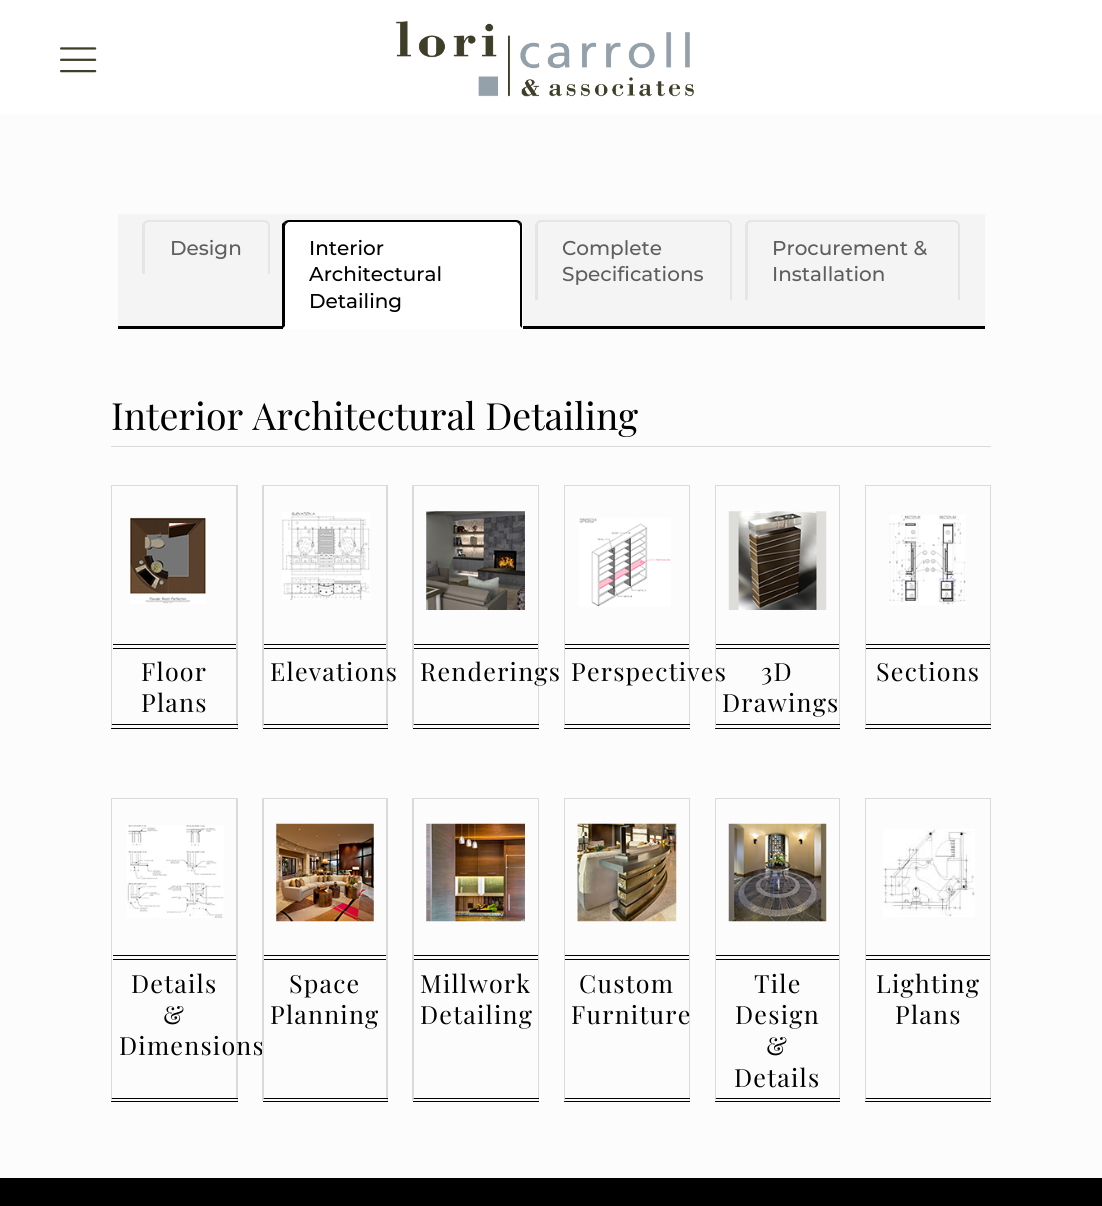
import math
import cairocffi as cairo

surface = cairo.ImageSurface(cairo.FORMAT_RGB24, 1102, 1206)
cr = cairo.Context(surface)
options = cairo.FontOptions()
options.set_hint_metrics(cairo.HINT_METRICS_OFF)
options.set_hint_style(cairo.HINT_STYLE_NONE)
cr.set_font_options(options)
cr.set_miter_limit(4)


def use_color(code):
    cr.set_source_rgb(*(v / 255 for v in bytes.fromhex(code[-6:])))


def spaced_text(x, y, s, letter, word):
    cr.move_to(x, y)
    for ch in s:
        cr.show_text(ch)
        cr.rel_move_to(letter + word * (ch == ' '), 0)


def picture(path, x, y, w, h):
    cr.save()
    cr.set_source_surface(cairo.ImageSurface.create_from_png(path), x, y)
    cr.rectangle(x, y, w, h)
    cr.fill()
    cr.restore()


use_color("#fcfcfc")
cr.paint()
use_color("#ffffff")
cr.rectangle(0, 0, 1102, 114)
cr.fill()
picture("img1.png", 60, 47, 37, 26)
picture("img2.png", 396, 21, 298, 76)
use_color("#f4f4f4")
cr.rectangle(118, 214, 867, 112)
cr.fill()
use_color("#000000")
cr.rectangle(118, 326, 867, 3)
cr.fill()
use_color("#e6e5e1")
cr.set_fill_rule(cairo.FILL_RULE_EVEN_ODD)
cr.new_path()
cr.move_to(149, 220)
cr.line_to(264, 220)
cr.curve_to(267, 220, 270, 223, 270, 226)
cr.line_to(270, 274)
cr.line_to(142, 274)
cr.line_to(142, 226)
cr.curve_to(142, 223, 145, 220, 149, 220)
cr.close_path()
cr.move_to(149, 222)
cr.line_to(264, 222)
cr.curve_to(266, 222, 268, 224, 268, 226)
cr.line_to(268, 274)
cr.line_to(145, 274)
cr.line_to(145, 226)
cr.curve_to(145, 224, 147, 222, 149, 222)
cr.close_path()
cr.fill()
cr.select_font_face("Montserrat Medium")
cr.set_font_size(20)
use_color("#5e5e5e")
cr.move_to(170, 255)
cr.show_text("Design")
use_color("#ffffff")
cr.new_path()
cr.move_to(289, 220)
cr.line_to(517, 220)
cr.curve_to(520.5, 220, 523, 222.5, 523, 226)
cr.line_to(523, 329)
cr.line_to(283, 329)
cr.line_to(283, 226)
cr.curve_to(283, 222.5, 285.5, 220, 289, 220)
cr.close_path()
cr.fill()
use_color("#000000")
cr.set_fill_rule(cairo.FILL_RULE_WINDING)
cr.new_path()
cr.move_to(289, 220)
cr.curve_to(287, 220, 285, 221, 284, 222)
cr.line_to(286, 224)
cr.curve_to(287, 223, 288, 222, 289, 222)
cr.line_to(516, 222)
cr.curve_to(517, 222, 518, 223, 519, 224)
cr.line_to(521, 222)
cr.curve_to(520, 221, 518, 220, 516, 220)
cr.close_path()
cr.fill()
cr.new_path()
cr.move_to(521, 222)
cr.curve_to(522, 223, 522, 225, 522, 226)
cr.line_to(522, 328)
cr.line_to(520, 326)
cr.line_to(520, 226)
cr.line_to(519, 224)
cr.close_path()
cr.fill()
cr.new_path()
cr.move_to(282, 329)
cr.line_to(282, 224)
cr.line_to(284, 222)
cr.line_to(286, 224)
cr.line_to(285, 226)
cr.line_to(285, 326)
cr.close_path()
cr.fill()
cr.move_to(309, 255)
cr.show_text("Interior")
cr.move_to(309, 281)
cr.show_text("Architectural")
cr.move_to(309, 308)
cr.show_text("Detailing")
use_color("#e6e5e1")
cr.set_fill_rule(cairo.FILL_RULE_EVEN_ODD)
cr.new_path()
cr.move_to(541, 220)
cr.line_to(726, 220)
cr.curve_to(730, 220, 732, 223, 732, 226)
cr.line_to(732, 300)
cr.line_to(535, 300)
cr.line_to(535, 226)
cr.curve_to(535, 223, 538, 220, 541, 220)
cr.close_path()
cr.move_to(541, 222)
cr.line_to(726, 222)
cr.curve_to(728, 222, 730, 224, 730, 226)
cr.line_to(730, 300)
cr.line_to(538, 300)
cr.line_to(538, 226)
cr.curve_to(538, 224, 539, 222, 541, 222)
cr.close_path()
cr.fill()
use_color("#5e5e5e")
cr.move_to(562, 255)
cr.show_text("Complete")
cr.move_to(562, 281)
cr.show_text("Specifications")
use_color("#e6e5e1")
cr.new_path()
cr.move_to(751, 220)
cr.line_to(954, 220)
cr.curve_to(957, 220, 960, 223, 960, 226)
cr.line_to(960, 300)
cr.line_to(745, 300)
cr.line_to(745, 226)
cr.curve_to(745, 223, 748, 220, 751, 220)
cr.close_path()
cr.move_to(751, 222)
cr.line_to(954, 222)
cr.curve_to(956, 222, 958, 224, 958, 226)
cr.line_to(958, 300)
cr.line_to(748, 300)
cr.line_to(748, 226)
cr.curve_to(748, 224, 749, 222, 751, 222)
cr.close_path()
cr.fill()
use_color("#5e5e5e")
cr.move_to(772, 255)
cr.show_text("Procurement &")
cr.move_to(772, 281)
cr.show_text("Installation")
use_color("#dadada")
cr.rectangle(111, 446, 880, 1)
cr.fill()
cr.select_font_face("Playfair Display")
cr.set_font_size(37.5)
use_color("#000000")
cr.move_to(111, 430)
cr.show_text("Interior Architectural Detailing")
use_color("#dadada")
cr.rectangle(111, 485, 127, 1)
cr.fill()
cr.set_fill_rule(cairo.FILL_RULE_WINDING)
cr.new_path()
cr.move_to(238, 485)
cr.line_to(238, 729)
cr.line_to(236, 724)
cr.line_to(236, 486)
cr.close_path()
cr.fill()
use_color("#000000")
cr.rectangle(111, 724, 127, 1)
cr.fill()
cr.rectangle(111, 728, 127, 1)
cr.fill()
use_color("#dadada")
cr.new_path()
cr.move_to(111, 729)
cr.line_to(111, 485)
cr.line_to(112, 486)
cr.line_to(112, 724)
cr.close_path()
cr.fill()
picture("img3.png", 130, 517, 76, 87)
use_color("#000000")
cr.rectangle(113, 648, 123, 1)
cr.fill()
cr.rectangle(113, 644, 123, 1)
cr.fill()
cr.set_font_size(25)
spaced_text(141, 681, "Floor", 1.25, 0)
spaced_text(141, 712, "Plans", 1.25, 0)
use_color("#dadada")
cr.rectangle(263, 485, 125, 1)
cr.fill()
cr.new_path()
cr.move_to(388, 485)
cr.line_to(388, 729)
cr.line_to(386, 724)
cr.line_to(386, 486)
cr.close_path()
cr.fill()
use_color("#000000")
cr.rectangle(263, 724, 125, 1)
cr.fill()
cr.rectangle(263, 728, 125, 1)
cr.fill()
use_color("#dadada")
cr.new_path()
cr.move_to(262, 729)
cr.line_to(262, 485)
cr.line_to(264, 486)
cr.line_to(264, 724)
cr.close_path()
cr.fill()
picture("img4.png", 282, 512, 88, 88)
use_color("#000000")
cr.rectangle(264, 648, 122, 1)
cr.fill()
cr.rectangle(264, 644, 122, 1)
cr.fill()
spaced_text(270, 681, "Elevations", 1.25, 0)
use_color("#dadada")
cr.rectangle(413, 485, 126, 1)
cr.fill()
cr.new_path()
cr.move_to(539, 485)
cr.line_to(539, 729)
cr.line_to(538, 724)
cr.line_to(538, 486)
cr.close_path()
cr.fill()
use_color("#000000")
cr.rectangle(413, 724, 126, 1)
cr.fill()
cr.rectangle(413, 728, 126, 1)
cr.fill()
use_color("#dadada")
cr.new_path()
cr.move_to(412, 729)
cr.line_to(412, 485)
cr.line_to(414, 486)
cr.line_to(414, 724)
cr.close_path()
cr.fill()
picture("img5.png", 426, 511, 99, 99)
use_color("#000000")
cr.rectangle(414, 648, 124, 1)
cr.fill()
cr.rectangle(414, 644, 124, 1)
cr.fill()
spaced_text(420, 681, "Renderings", 1.25, 0)
use_color("#dadada")
cr.rectangle(564, 485, 126, 1)
cr.fill()
cr.new_path()
cr.move_to(690, 485)
cr.line_to(690, 729)
cr.line_to(689, 724)
cr.line_to(689, 486)
cr.close_path()
cr.fill()
use_color("#000000")
cr.rectangle(564, 724, 126, 1)
cr.fill()
cr.rectangle(564, 728, 126, 1)
cr.fill()
use_color("#dadada")
cr.new_path()
cr.move_to(564, 729)
cr.line_to(564, 485)
cr.line_to(565, 486)
cr.line_to(565, 724)
cr.close_path()
cr.fill()
picture("img6.png", 579, 518, 92, 89)
use_color("#000000")
cr.rectangle(565, 648, 124, 1)
cr.fill()
cr.rectangle(565, 644, 124, 1)
cr.fill()
spaced_text(571, 681, "Perspectives", 1.25, 0)
use_color("#dadada")
cr.rectangle(715, 485, 125, 1)
cr.fill()
cr.new_path()
cr.move_to(840, 485)
cr.line_to(840, 729)
cr.line_to(839, 724)
cr.line_to(839, 486)
cr.close_path()
cr.fill()
use_color("#000000")
cr.rectangle(715, 724, 125, 1)
cr.fill()
cr.rectangle(715, 728, 125, 1)
cr.fill()
use_color("#dadada")
cr.new_path()
cr.move_to(715, 729)
cr.line_to(715, 485)
cr.line_to(716, 486)
cr.line_to(716, 724)
cr.close_path()
cr.fill()
picture("img7.png", 728, 511, 99, 99)
use_color("#000000")
cr.rectangle(716, 648, 123, 1)
cr.fill()
cr.rectangle(716, 644, 123, 1)
cr.fill()
spaced_text(761, 681, "3D", 1.25, 0)
spaced_text(722, 712, "Drawings", 1.25, 0)
use_color("#dadada")
cr.rectangle(865, 485, 126, 1)
cr.fill()
cr.new_path()
cr.move_to(991, 485)
cr.line_to(991, 729)
cr.line_to(990, 724)
cr.line_to(990, 486)
cr.close_path()
cr.fill()
use_color("#000000")
cr.rectangle(865, 724, 126, 1)
cr.fill()
cr.rectangle(865, 728, 126, 1)
cr.fill()
use_color("#dadada")
cr.new_path()
cr.move_to(865, 729)
cr.line_to(865, 485)
cr.line_to(866, 486)
cr.line_to(866, 724)
cr.close_path()
cr.fill()
picture("img8.png", 889, 515, 77, 90)
use_color("#000000")
cr.rectangle(866, 648, 124, 1)
cr.fill()
cr.rectangle(866, 644, 124, 1)
cr.fill()
spaced_text(876, 681, "Sections", 1.25, 0)
use_color("#dadada")
cr.rectangle(111, 798, 127, 1)
cr.fill()
cr.new_path()
cr.move_to(238, 798)
cr.line_to(238, 1102)
cr.line_to(236, 1098)
cr.line_to(236, 799)
cr.close_path()
cr.fill()
use_color("#000000")
cr.rectangle(111, 1098, 127, 1)
cr.fill()
cr.rectangle(111, 1101, 127, 1)
cr.fill()
use_color("#dadada")
cr.new_path()
cr.move_to(111, 1102)
cr.line_to(111, 798)
cr.line_to(112, 799)
cr.line_to(112, 1098)
cr.close_path()
cr.fill()
picture("img9.png", 127, 825, 97, 93)
use_color("#000000")
cr.rectangle(113, 959, 123, 1)
cr.fill()
cr.rectangle(113, 955, 123, 1)
cr.fill()
spaced_text(131, 993, "Details", 1.25, 0)
spaced_text(163, 1024, "&", 1.25, 0)
spaced_text(119, 1055, "Dimensions", 1.25, 0)
use_color("#dadada")
cr.rectangle(263, 798, 125, 1)
cr.fill()
cr.new_path()
cr.move_to(388, 798)
cr.line_to(388, 1102)
cr.line_to(386, 1098)
cr.line_to(386, 799)
cr.close_path()
cr.fill()
use_color("#000000")
cr.rectangle(263, 1098, 125, 1)
cr.fill()
cr.rectangle(263, 1101, 125, 1)
cr.fill()
use_color("#dadada")
cr.new_path()
cr.move_to(262, 1102)
cr.line_to(262, 798)
cr.line_to(264, 799)
cr.line_to(264, 1098)
cr.close_path()
cr.fill()
picture("img10.png", 276, 823, 98, 99)
use_color("#000000")
cr.rectangle(264, 959, 122, 1)
cr.fill()
cr.rectangle(264, 955, 122, 1)
cr.fill()
spaced_text(289, 993, "Space", 1.25, 0)
spaced_text(270, 1024, "Planning", 1.25, 0)
use_color("#dadada")
cr.rectangle(413, 798, 126, 1)
cr.fill()
cr.new_path()
cr.move_to(539, 798)
cr.line_to(539, 1102)
cr.line_to(538, 1098)
cr.line_to(538, 799)
cr.close_path()
cr.fill()
use_color("#000000")
cr.rectangle(413, 1098, 126, 1)
cr.fill()
cr.rectangle(413, 1101, 126, 1)
cr.fill()
use_color("#dadada")
cr.new_path()
cr.move_to(412, 1102)
cr.line_to(412, 798)
cr.line_to(414, 799)
cr.line_to(414, 1098)
cr.close_path()
cr.fill()
picture("img11.png", 426, 823, 99, 99)
use_color("#000000")
cr.rectangle(414, 959, 124, 1)
cr.fill()
cr.rectangle(414, 955, 124, 1)
cr.fill()
spaced_text(420, 993, "Millwork", 1.25, 0)
spaced_text(420, 1024, "Detailing", 1.25, 0)
use_color("#dadada")
cr.rectangle(564, 798, 126, 1)
cr.fill()
cr.new_path()
cr.move_to(690, 798)
cr.line_to(690, 1102)
cr.line_to(689, 1098)
cr.line_to(689, 799)
cr.close_path()
cr.fill()
use_color("#000000")
cr.rectangle(564, 1098, 126, 1)
cr.fill()
cr.rectangle(564, 1101, 126, 1)
cr.fill()
use_color("#dadada")
cr.new_path()
cr.move_to(564, 1102)
cr.line_to(564, 798)
cr.line_to(565, 799)
cr.line_to(565, 1098)
cr.close_path()
cr.fill()
picture("img12.png", 577, 823, 100, 99)
use_color("#000000")
cr.rectangle(565, 959, 124, 1)
cr.fill()
cr.rectangle(565, 955, 124, 1)
cr.fill()
spaced_text(579, 993, "Custom", 1.25, 0)
spaced_text(571, 1024, "Furniture", 1.25, 0)
use_color("#dadada")
cr.rectangle(715, 798, 125, 1)
cr.fill()
cr.new_path()
cr.move_to(840, 798)
cr.line_to(840, 1102)
cr.line_to(839, 1098)
cr.line_to(839, 799)
cr.close_path()
cr.fill()
use_color("#000000")
cr.rectangle(715, 1098, 125, 1)
cr.fill()
cr.rectangle(715, 1101, 125, 1)
cr.fill()
use_color("#dadada")
cr.new_path()
cr.move_to(715, 1102)
cr.line_to(715, 798)
cr.line_to(716, 799)
cr.line_to(716, 1098)
cr.close_path()
cr.fill()
picture("img13.png", 728, 823, 99, 99)
use_color("#000000")
cr.rectangle(716, 959, 123, 1)
cr.fill()
cr.rectangle(716, 955, 123, 1)
cr.fill()
spaced_text(754, 993, "Tile", 1.25, 0)
spaced_text(735, 1024, "Design", 1.25, 0)
spaced_text(766, 1055, "&", 1.25, 0)
spaced_text(734, 1087, "Details", 1.25, 0)
use_color("#dadada")
cr.rectangle(865, 798, 126, 1)
cr.fill()
cr.new_path()
cr.move_to(991, 798)
cr.line_to(991, 1102)
cr.line_to(990, 1098)
cr.line_to(990, 799)
cr.close_path()
cr.fill()
use_color("#000000")
cr.rectangle(865, 1098, 126, 1)
cr.fill()
cr.rectangle(865, 1101, 126, 1)
cr.fill()
use_color("#dadada")
cr.new_path()
cr.move_to(865, 1102)
cr.line_to(865, 798)
cr.line_to(866, 799)
cr.line_to(866, 1098)
cr.close_path()
cr.fill()
picture("img14.png", 883, 829, 92, 88)
use_color("#000000")
cr.rectangle(866, 959, 124, 1)
cr.fill()
cr.rectangle(866, 955, 124, 1)
cr.fill()
spaced_text(876, 993, "Lighting", 1.25, 0)
spaced_text(895, 1024, "Plans", 1.25, 0)
cr.rectangle(0, 1178, 1102, 28)
cr.fill()
surface.write_to_png("result.png")
